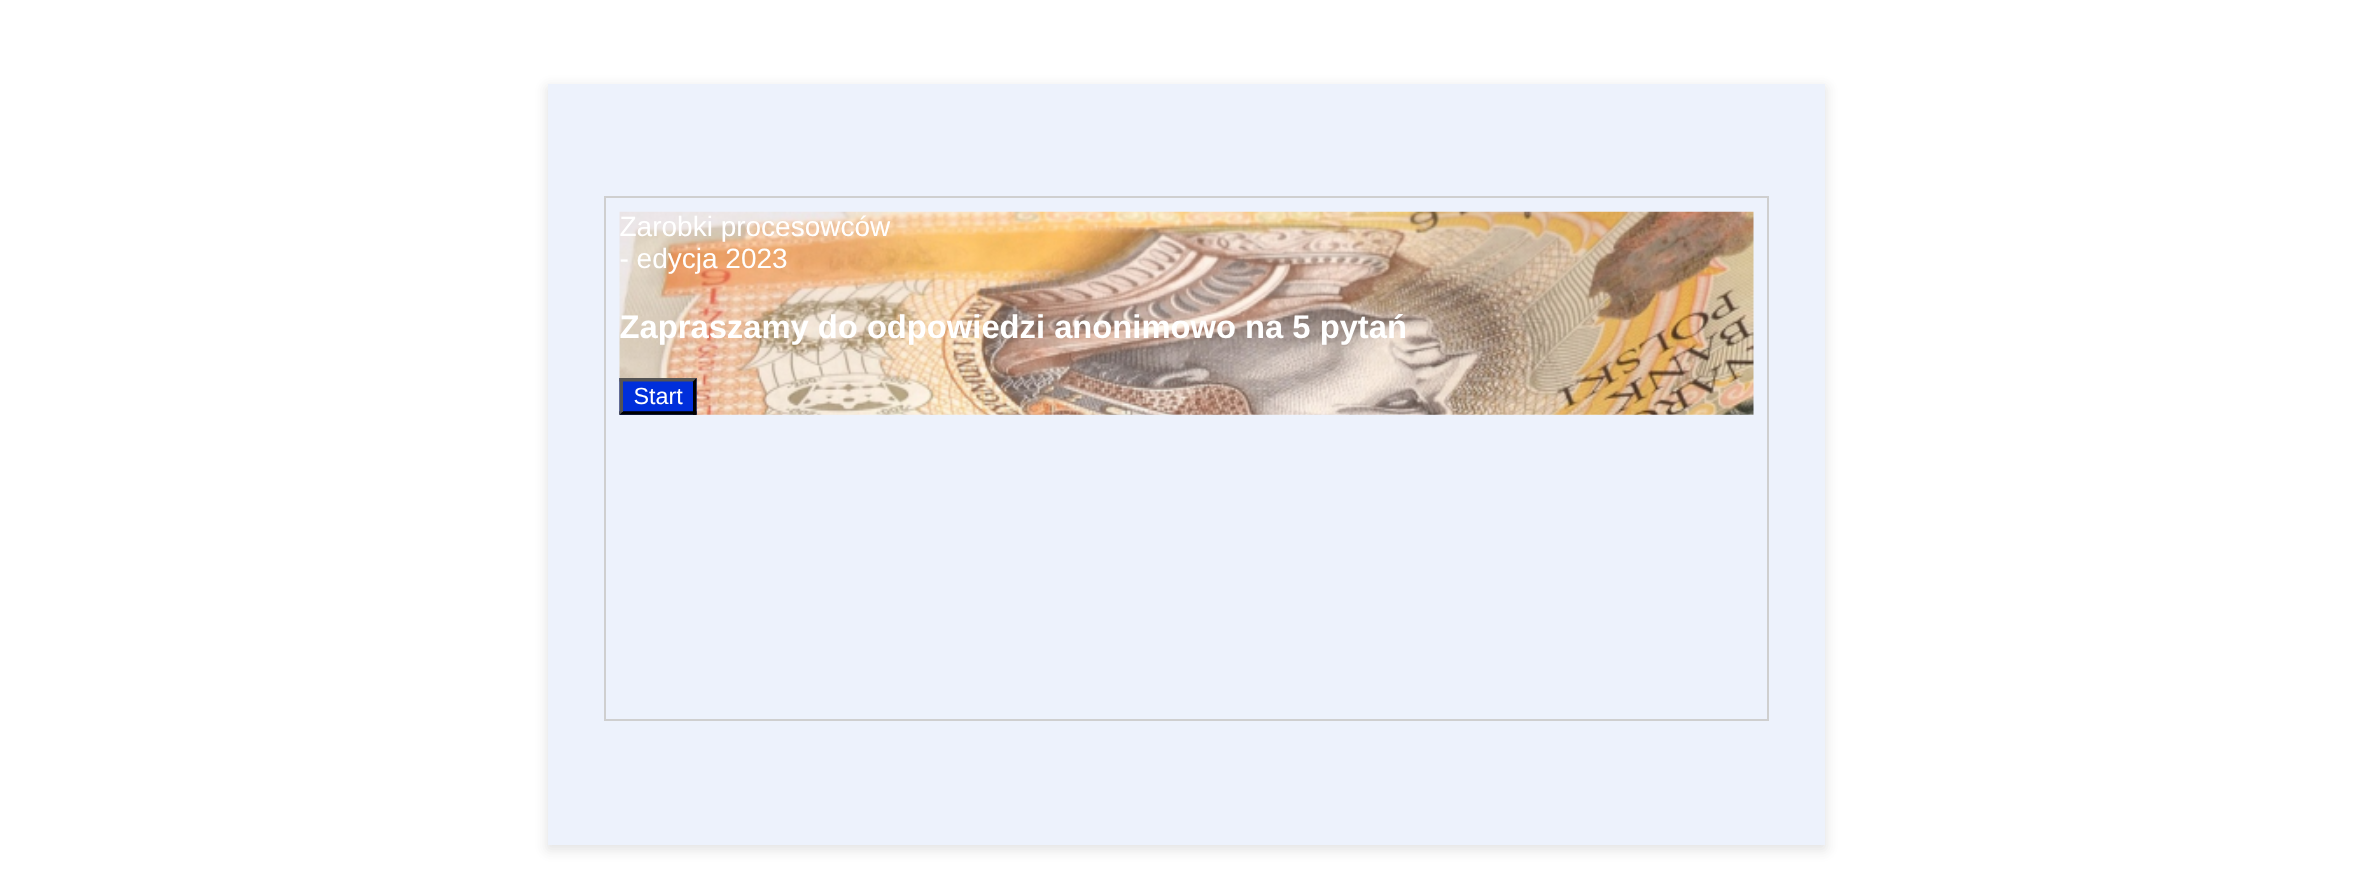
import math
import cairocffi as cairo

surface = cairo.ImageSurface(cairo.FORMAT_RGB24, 2372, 882)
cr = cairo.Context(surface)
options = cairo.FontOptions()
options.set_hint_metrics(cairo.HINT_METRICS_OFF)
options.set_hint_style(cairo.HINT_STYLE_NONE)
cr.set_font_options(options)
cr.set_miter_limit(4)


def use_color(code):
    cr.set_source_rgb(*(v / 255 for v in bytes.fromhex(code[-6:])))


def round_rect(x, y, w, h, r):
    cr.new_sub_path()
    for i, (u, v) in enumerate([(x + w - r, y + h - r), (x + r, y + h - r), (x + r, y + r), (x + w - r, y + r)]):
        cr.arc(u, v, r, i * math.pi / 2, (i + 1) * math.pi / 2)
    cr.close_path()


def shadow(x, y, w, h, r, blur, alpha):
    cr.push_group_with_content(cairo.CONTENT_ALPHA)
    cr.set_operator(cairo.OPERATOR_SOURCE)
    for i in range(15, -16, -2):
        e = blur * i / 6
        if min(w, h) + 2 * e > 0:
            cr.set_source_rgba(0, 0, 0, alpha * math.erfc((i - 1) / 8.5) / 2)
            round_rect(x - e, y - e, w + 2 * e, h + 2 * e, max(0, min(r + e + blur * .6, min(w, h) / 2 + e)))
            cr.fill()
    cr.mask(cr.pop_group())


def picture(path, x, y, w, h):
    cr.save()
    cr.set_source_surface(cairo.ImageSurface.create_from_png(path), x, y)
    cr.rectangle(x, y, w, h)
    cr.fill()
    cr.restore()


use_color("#ffffff")
cr.paint()
use_color("#9b9b9b")
shadow(548, 88, 1277, 761, 0, 7, 0.32)
use_color("#edf2fc")
cr.rectangle(548, 84, 1277, 761)
cr.fill()
cr.rectangle(605, 197, 1163, 523)
use_color("#cfcfcf")
cr.stroke()
picture("img1.png", 619, 211, 1135, 204)
surface.write_to_png("result.png")
